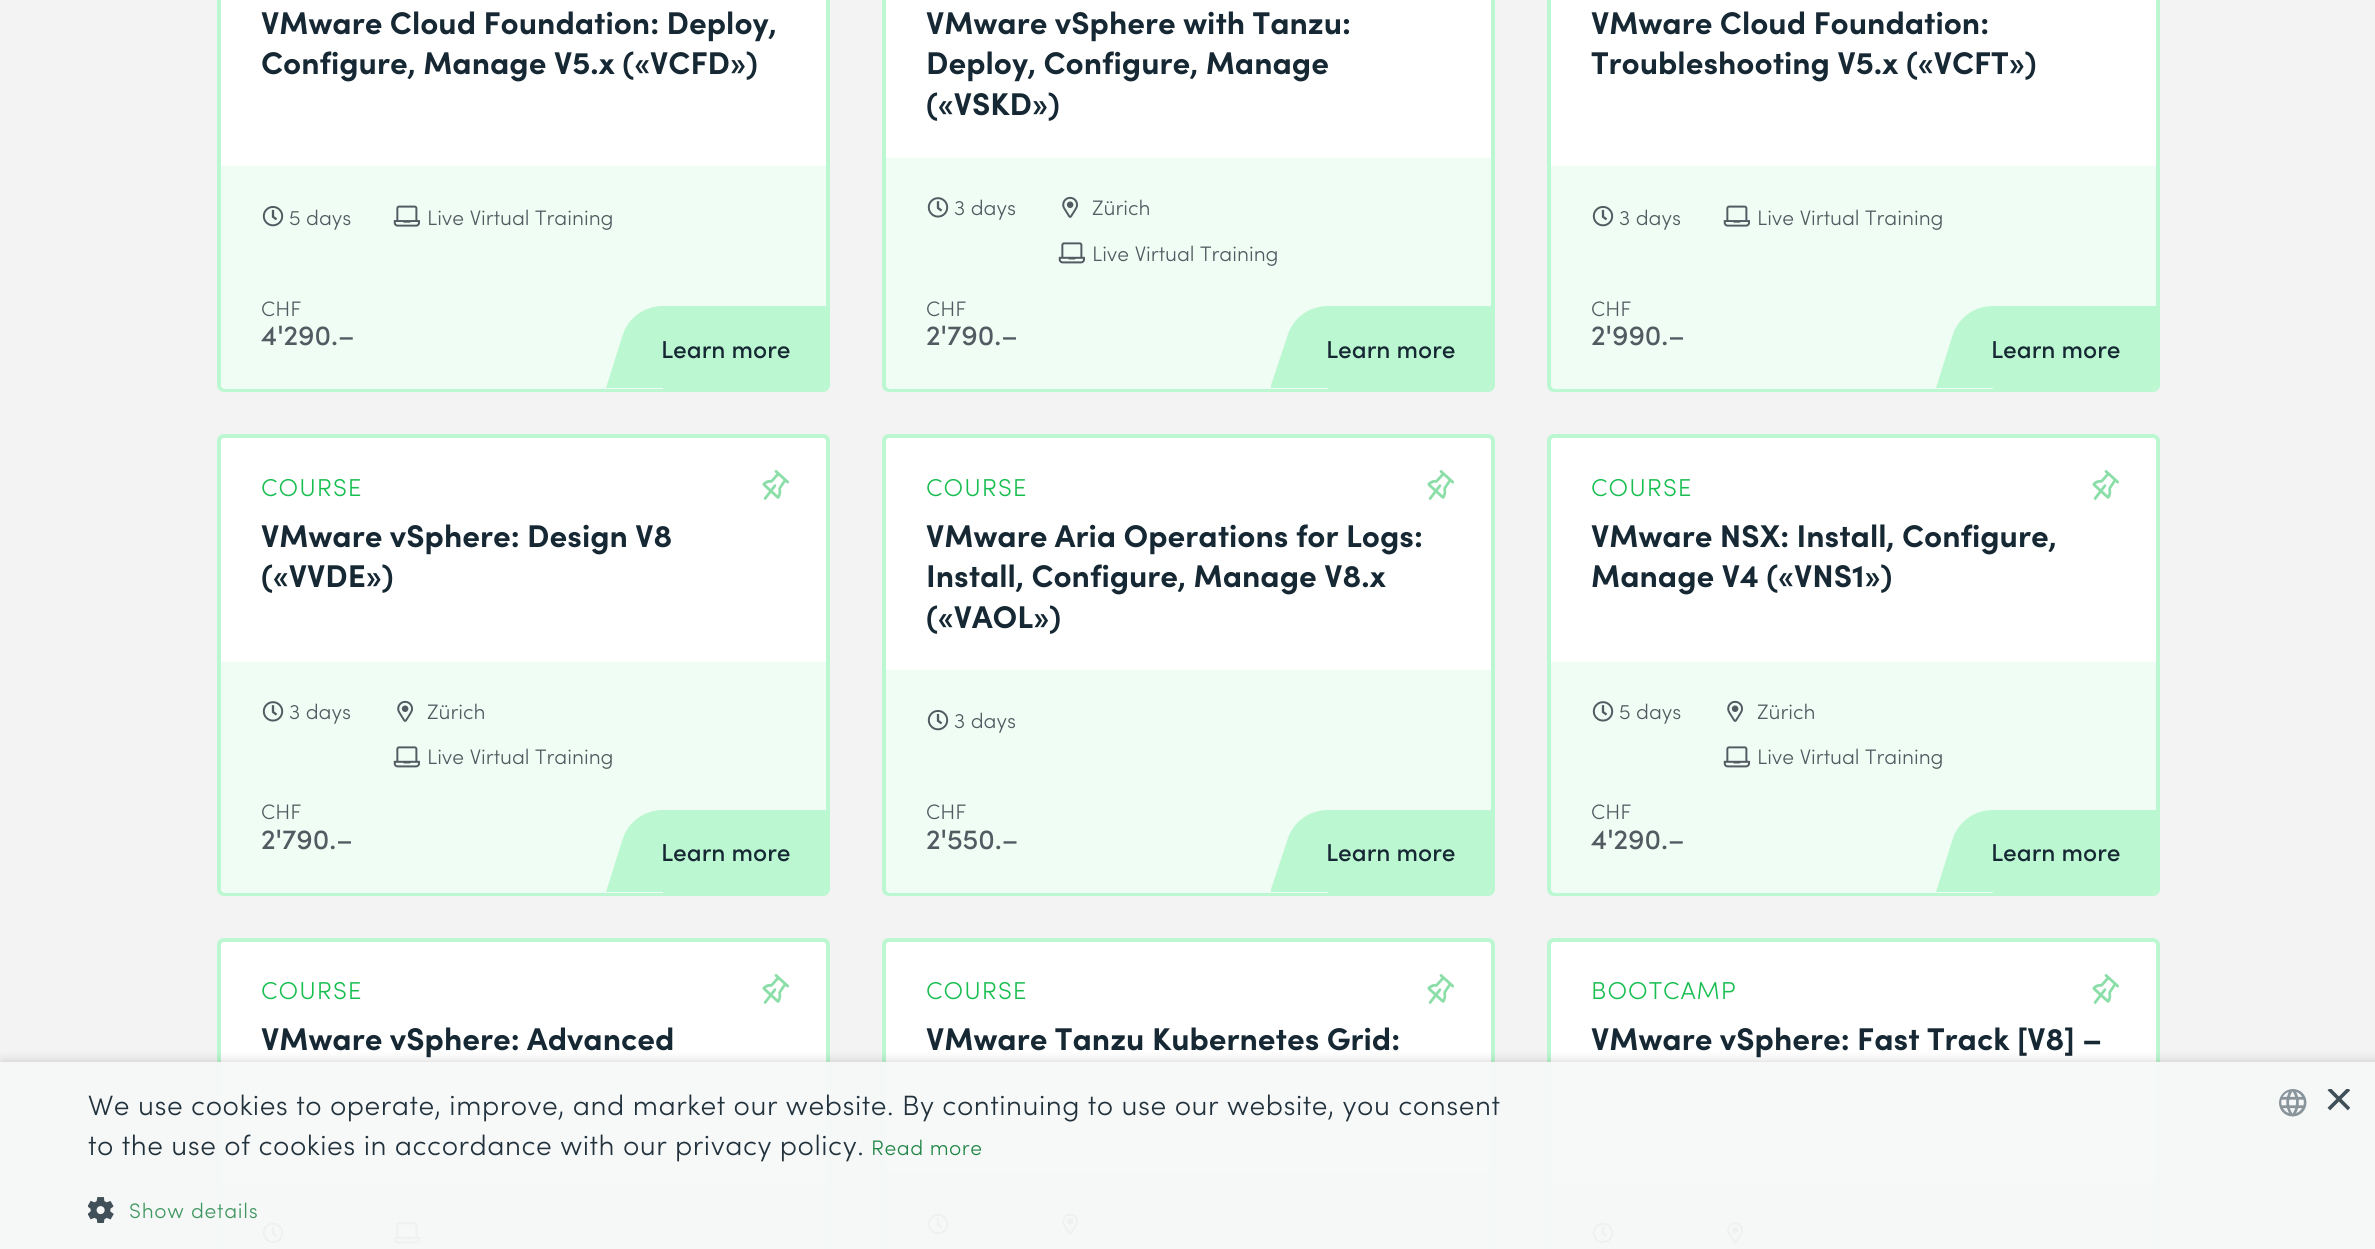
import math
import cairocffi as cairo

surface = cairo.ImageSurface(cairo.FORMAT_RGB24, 2375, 1249)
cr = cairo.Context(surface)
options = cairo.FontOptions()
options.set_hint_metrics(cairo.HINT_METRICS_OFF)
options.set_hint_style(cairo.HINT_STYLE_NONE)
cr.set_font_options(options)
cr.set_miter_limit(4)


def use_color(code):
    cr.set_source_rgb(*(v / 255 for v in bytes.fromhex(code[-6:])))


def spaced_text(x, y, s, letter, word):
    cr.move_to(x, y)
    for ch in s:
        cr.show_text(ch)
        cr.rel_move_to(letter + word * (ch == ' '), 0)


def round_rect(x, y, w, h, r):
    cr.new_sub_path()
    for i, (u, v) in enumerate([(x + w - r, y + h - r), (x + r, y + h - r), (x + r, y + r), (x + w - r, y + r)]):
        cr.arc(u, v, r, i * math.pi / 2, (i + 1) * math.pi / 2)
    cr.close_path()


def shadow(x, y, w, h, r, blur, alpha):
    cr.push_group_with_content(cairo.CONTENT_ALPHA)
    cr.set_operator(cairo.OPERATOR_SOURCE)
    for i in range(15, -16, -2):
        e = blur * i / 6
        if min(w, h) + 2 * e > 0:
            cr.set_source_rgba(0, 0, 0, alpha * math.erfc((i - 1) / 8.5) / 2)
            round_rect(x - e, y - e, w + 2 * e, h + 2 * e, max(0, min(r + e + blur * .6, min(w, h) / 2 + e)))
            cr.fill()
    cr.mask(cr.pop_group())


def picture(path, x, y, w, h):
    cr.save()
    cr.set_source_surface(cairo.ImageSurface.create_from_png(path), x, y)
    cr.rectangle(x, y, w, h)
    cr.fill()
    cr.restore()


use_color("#f4f3f3")
cr.paint()
use_color("#ffffff")
round_rect(219, -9, 609, 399, 5)
cr.fill_preserve()
use_color("#bbf7d0")
cr.set_line_width(4)
cr.stroke()
cr.select_font_face("Sofia", cairo.FONT_SLANT_NORMAL, cairo.FONT_WEIGHT_BOLD)
cr.set_font_size(31.5)
use_color("#162833")
cr.move_to(261, 34)
cr.show_text("VMware Cloud Foundation: Deploy,")
cr.move_to(261, 74)
cr.show_text("Configure, Manage V5.x («VCFD»)")
use_color("#f0fdf4")
cr.new_path()
cr.move_to(221, 166)
cr.line_to(826, 166)
cr.line_to(826, 385)
cr.curve_to(826, 387, 824, 389, 822, 389)
cr.line_to(225, 389)
cr.curve_to(223, 389, 221, 387, 221, 385)
cr.close_path()
cr.fill()
picture("img1.png", 262, 206, 22, 21)
cr.select_font_face("Sofia Light")
cr.set_font_size(21)
use_color("#515b61")
cr.move_to(289, 225)
cr.show_text("5 days")
picture("img2.png", 393, 205, 27, 22)
cr.move_to(427, 225)
cr.show_text("Live Virtual Training")
cr.move_to(261, 316)
cr.show_text("CHF")
cr.select_font_face("Sofia Medium")
cr.set_font_size(28)
cr.move_to(261, 345)
cr.show_text("4'290.–")
use_color("#bbf7d0")
cr.new_path()
cr.move_to(663, 306)
cr.line_to(826, 306)
cr.line_to(826, 385)
cr.curve_to(826, 387, 824, 389, 822, 389)
cr.line_to(663, 389)
cr.close_path()
cr.fill()
cr.new_path()
cr.move_to(623, 334)
cr.line_to(606, 388)
cr.line_to(663, 388)
cr.line_to(663, 306)
cr.curve_to(645, 306, 629, 317, 623, 334)
cr.close_path()
cr.fill()
cr.set_font_size(24.5)
use_color("#162833")
cr.move_to(661, 358)
cr.show_text("Learn more")
use_color("#ffffff")
round_rect(884, -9, 609, 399, 5)
cr.fill_preserve()
use_color("#bbf7d0")
cr.stroke()
cr.select_font_face("Sofia", cairo.FONT_SLANT_NORMAL, cairo.FONT_WEIGHT_BOLD)
cr.set_font_size(31.5)
use_color("#162833")
cr.move_to(926, 34)
cr.show_text("VMware vSphere with Tanzu:")
cr.move_to(926, 74)
cr.show_text("Deploy, Configure, Manage")
cr.move_to(926, 115)
cr.show_text("(«VSKD»)")
use_color("#f0fdf4")
cr.new_path()
cr.move_to(886, 158)
cr.line_to(1491, 158)
cr.line_to(1491, 385)
cr.curve_to(1491, 387, 1489, 389, 1487, 389)
cr.line_to(890, 389)
cr.curve_to(888, 389, 886, 387, 886, 385)
cr.close_path()
cr.fill()
picture("img3.png", 927, 197, 22, 21)
cr.select_font_face("Sofia Light")
cr.set_font_size(21)
use_color("#515b61")
cr.move_to(954, 215)
cr.show_text("3 days")
picture("img4.png", 1062, 196, 16, 22)
cr.move_to(1092, 215)
cr.show_text("Zürich")
picture("img5.png", 1058, 242, 27, 22)
cr.move_to(1092, 261)
cr.show_text("Live Virtual Training")
cr.move_to(926, 316)
cr.show_text("CHF")
cr.select_font_face("Sofia Medium")
cr.set_font_size(28)
cr.move_to(926, 345)
cr.show_text("2'790.–")
use_color("#bbf7d0")
cr.new_path()
cr.move_to(1328, 306)
cr.line_to(1491, 306)
cr.line_to(1491, 385)
cr.curve_to(1491, 387, 1489, 389, 1487, 389)
cr.line_to(1328, 389)
cr.close_path()
cr.fill()
cr.save()
cr.rectangle(1271, 306, 57, 83)
cr.clip()
cr.new_path()
cr.move_to(1288, 334)
cr.line_to(1270, 388)
cr.line_to(1328, 388)
cr.line_to(1328, 306)
cr.curve_to(1310, 306, 1294, 317, 1288, 334)
cr.close_path()
cr.fill()
cr.restore()
cr.set_font_size(24.5)
use_color("#162833")
cr.move_to(1326, 358)
cr.show_text("Learn more")
use_color("#ffffff")
round_rect(1549, -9, 609, 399, 5)
cr.fill_preserve()
use_color("#bbf7d0")
cr.stroke()
cr.select_font_face("Sofia", cairo.FONT_SLANT_NORMAL, cairo.FONT_WEIGHT_BOLD)
cr.set_font_size(31.5)
use_color("#162833")
cr.move_to(1591, 34)
cr.show_text("VMware Cloud Foundation:")
cr.move_to(1591, 74)
cr.show_text("Troubleshooting V5.x («VCFT»)")
use_color("#f0fdf4")
cr.new_path()
cr.move_to(1551, 166)
cr.line_to(2156, 166)
cr.line_to(2156, 385)
cr.curve_to(2156, 387, 2154, 389, 2152, 389)
cr.line_to(1555, 389)
cr.curve_to(1553, 389, 1551, 387, 1551, 385)
cr.close_path()
cr.fill()
picture("img1.png", 1592, 206, 22, 21)
cr.select_font_face("Sofia Light")
cr.set_font_size(21)
use_color("#515b61")
cr.move_to(1619, 225)
cr.show_text("3 days")
picture("img2.png", 1723, 205, 27, 22)
cr.move_to(1757, 225)
cr.show_text("Live Virtual Training")
cr.move_to(1591, 316)
cr.show_text("CHF")
cr.select_font_face("Sofia Medium")
cr.set_font_size(28)
cr.move_to(1591, 345)
cr.show_text("2'990.–")
use_color("#bbf7d0")
cr.new_path()
cr.move_to(1993, 306)
cr.line_to(2156, 306)
cr.line_to(2156, 385)
cr.curve_to(2156, 387, 2154, 389, 2152, 389)
cr.line_to(1993, 389)
cr.close_path()
cr.fill()
cr.new_path()
cr.move_to(1953, 334)
cr.line_to(1936, 388)
cr.line_to(1993, 388)
cr.line_to(1993, 306)
cr.curve_to(1975, 306, 1959, 317, 1953, 334)
cr.close_path()
cr.fill()
cr.set_font_size(24.5)
use_color("#162833")
cr.move_to(1991, 358)
cr.show_text("Learn more")
use_color("#ffffff")
round_rect(219, 436, 609, 458, 5)
cr.fill_preserve()
use_color("#bbf7d0")
cr.stroke()
cr.select_font_face("Sofia Light")
use_color("#18be50")
spaced_text(261, 496, "COURSE", 1, 0)
picture("img6.png", 762, 470, 27, 30)
cr.select_font_face("Sofia", cairo.FONT_SLANT_NORMAL, cairo.FONT_WEIGHT_BOLD)
cr.set_font_size(31.5)
use_color("#162833")
cr.move_to(261, 547)
cr.show_text("VMware vSphere: Design V8")
cr.move_to(261, 587)
cr.show_text("(«VVDE»)")
use_color("#f0fdf4")
cr.new_path()
cr.move_to(221, 662)
cr.line_to(826, 662)
cr.line_to(826, 889)
cr.curve_to(826, 891, 824, 893, 822, 893)
cr.line_to(225, 893)
cr.curve_to(223, 893, 221, 891, 221, 889)
cr.close_path()
cr.fill()
picture("img3.png", 262, 701, 22, 21)
cr.select_font_face("Sofia Light")
cr.set_font_size(21)
use_color("#515b61")
cr.move_to(289, 719)
cr.show_text("3 days")
picture("img4.png", 397, 700, 16, 22)
cr.move_to(427, 719)
cr.show_text("Zürich")
picture("img5.png", 393, 746, 27, 22)
cr.move_to(427, 764)
cr.show_text("Live Virtual Training")
cr.move_to(261, 819)
cr.show_text("CHF")
cr.select_font_face("Sofia Medium")
cr.set_font_size(28)
cr.move_to(261, 849)
cr.show_text("2'790.–")
use_color("#bbf7d0")
cr.new_path()
cr.move_to(663, 810)
cr.line_to(826, 810)
cr.line_to(826, 889)
cr.curve_to(826, 891, 824, 893, 822, 893)
cr.line_to(663, 893)
cr.close_path()
cr.fill()
cr.new_path()
cr.move_to(623, 838)
cr.line_to(606, 892)
cr.line_to(663, 892)
cr.line_to(663, 810)
cr.curve_to(645, 810, 629, 821, 623, 838)
cr.close_path()
cr.fill()
cr.set_font_size(24.5)
use_color("#162833")
cr.move_to(661, 861)
cr.show_text("Learn more")
use_color("#ffffff")
round_rect(884, 436, 609, 458, 5)
cr.fill_preserve()
use_color("#bbf7d0")
cr.stroke()
cr.select_font_face("Sofia Light")
use_color("#18be50")
spaced_text(926, 496, "COURSE", 1, 0)
picture("img6.png", 1427, 470, 27, 30)
cr.select_font_face("Sofia", cairo.FONT_SLANT_NORMAL, cairo.FONT_WEIGHT_BOLD)
cr.set_font_size(31.5)
use_color("#162833")
cr.move_to(926, 547)
cr.show_text("VMware Aria Operations for Logs:")
cr.move_to(926, 587)
cr.show_text("Install, Configure, Manage V8.x")
cr.move_to(926, 628)
cr.show_text("(«VAOL»)")
use_color("#f0fdf4")
cr.new_path()
cr.move_to(886, 670)
cr.line_to(1491, 670)
cr.line_to(1491, 889)
cr.curve_to(1491, 891, 1489, 893, 1487, 893)
cr.line_to(890, 893)
cr.curve_to(888, 893, 886, 891, 886, 889)
cr.close_path()
cr.fill()
picture("img1.png", 927, 710, 22, 21)
cr.select_font_face("Sofia Light")
cr.set_font_size(21)
use_color("#515b61")
cr.move_to(954, 728)
cr.show_text("3 days")
cr.move_to(926, 819)
cr.show_text("CHF")
cr.select_font_face("Sofia Medium")
cr.set_font_size(28)
cr.move_to(926, 849)
cr.show_text("2'550.–")
use_color("#bbf7d0")
cr.new_path()
cr.move_to(1328, 810)
cr.line_to(1491, 810)
cr.line_to(1491, 889)
cr.curve_to(1491, 891, 1489, 893, 1487, 893)
cr.line_to(1328, 893)
cr.close_path()
cr.fill()
cr.save()
cr.rectangle(1271, 810, 57, 83)
cr.clip()
cr.new_path()
cr.move_to(1288, 838)
cr.line_to(1270, 892)
cr.line_to(1328, 892)
cr.line_to(1328, 810)
cr.curve_to(1310, 810, 1294, 821, 1288, 838)
cr.close_path()
cr.fill()
cr.restore()
cr.set_font_size(24.5)
use_color("#162833")
cr.move_to(1326, 861)
cr.show_text("Learn more")
use_color("#ffffff")
round_rect(1549, 436, 609, 458, 5)
cr.fill_preserve()
use_color("#bbf7d0")
cr.stroke()
cr.select_font_face("Sofia Light")
use_color("#18be50")
spaced_text(1591, 496, "COURSE", 1, 0)
picture("img6.png", 2092, 470, 27, 30)
cr.select_font_face("Sofia", cairo.FONT_SLANT_NORMAL, cairo.FONT_WEIGHT_BOLD)
cr.set_font_size(31.5)
use_color("#162833")
cr.move_to(1591, 547)
cr.show_text("VMware NSX: Install, Configure,")
cr.move_to(1591, 587)
cr.show_text("Manage V4 («VNS1»)")
use_color("#f0fdf4")
cr.new_path()
cr.move_to(1551, 662)
cr.line_to(2156, 662)
cr.line_to(2156, 889)
cr.curve_to(2156, 891, 2154, 893, 2152, 893)
cr.line_to(1555, 893)
cr.curve_to(1553, 893, 1551, 891, 1551, 889)
cr.close_path()
cr.fill()
picture("img3.png", 1592, 701, 22, 21)
cr.select_font_face("Sofia Light")
cr.set_font_size(21)
use_color("#515b61")
cr.move_to(1619, 719)
cr.show_text("5 days")
picture("img4.png", 1727, 700, 16, 22)
cr.move_to(1757, 719)
cr.show_text("Zürich")
picture("img5.png", 1723, 746, 27, 22)
cr.move_to(1757, 764)
cr.show_text("Live Virtual Training")
cr.move_to(1591, 819)
cr.show_text("CHF")
cr.select_font_face("Sofia Medium")
cr.set_font_size(28)
cr.move_to(1591, 849)
cr.show_text("4'290.–")
use_color("#bbf7d0")
cr.new_path()
cr.move_to(1993, 810)
cr.line_to(2156, 810)
cr.line_to(2156, 889)
cr.curve_to(2156, 891, 2154, 893, 2152, 893)
cr.line_to(1993, 893)
cr.close_path()
cr.fill()
cr.new_path()
cr.move_to(1953, 838)
cr.line_to(1936, 892)
cr.line_to(1993, 892)
cr.line_to(1993, 810)
cr.curve_to(1975, 810, 1959, 821, 1953, 838)
cr.close_path()
cr.fill()
cr.set_font_size(24.5)
use_color("#162833")
cr.move_to(1991, 861)
cr.show_text("Learn more")
use_color("#ffffff")
round_rect(219, 940, 609, 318, 5)
cr.fill_preserve()
use_color("#bbf7d0")
cr.stroke()
cr.select_font_face("Sofia Light")
use_color("#18be50")
spaced_text(261, 999, "COURSE", 1, 0)
picture("img6.png", 762, 974, 27, 30)
cr.select_font_face("Sofia", cairo.FONT_SLANT_NORMAL, cairo.FONT_WEIGHT_BOLD)
cr.set_font_size(31.5)
use_color("#162833")
cr.move_to(261, 1050)
cr.show_text("VMware vSphere: Advanced")
use_color("#f0fdf4")
cr.rectangle(221, 1183, 605, 66)
cr.fill()
picture("img7.png", 262, 1222, 22, 21)
picture("img5.png", 393, 1222, 27, 22)
use_color("#ffffff")
round_rect(884, 940, 609, 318, 5)
cr.fill_preserve()
use_color("#bbf7d0")
cr.stroke()
cr.select_font_face("Sofia Light")
cr.set_font_size(24.5)
use_color("#18be50")
spaced_text(926, 999, "COURSE", 1, 0)
picture("img6.png", 1427, 974, 27, 30)
cr.select_font_face("Sofia", cairo.FONT_SLANT_NORMAL, cairo.FONT_WEIGHT_BOLD)
cr.set_font_size(31.5)
use_color("#162833")
cr.move_to(926, 1050)
cr.show_text("VMware Tanzu Kubernetes Grid:")
use_color("#f0fdf4")
cr.rectangle(886, 1174, 605, 75)
cr.fill()
picture("img1.png", 927, 1214, 22, 21)
picture("img8.png", 1062, 1213, 16, 22)
use_color("#ffffff")
round_rect(1549, 940, 609, 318, 5)
cr.fill_preserve()
use_color("#bbf7d0")
cr.stroke()
cr.select_font_face("Sofia Light")
cr.set_font_size(24.5)
use_color("#18be50")
spaced_text(1591, 999, "BOOTCAMP", 1, 0)
picture("img6.png", 2092, 974, 27, 30)
cr.select_font_face("Sofia", cairo.FONT_SLANT_NORMAL, cairo.FONT_WEIGHT_BOLD)
cr.set_font_size(31.5)
use_color("#162833")
cr.move_to(1591, 1050)
cr.show_text("VMware vSphere: Fast Track [V8] –")
use_color("#f0fdf4")
cr.rectangle(1551, 1183, 605, 66)
cr.fill()
picture("img7.png", 1592, 1222, 22, 21)
picture("img9.png", 1727, 1222, 16, 22)
cr.save()
cr.set_fill_rule(cairo.FILL_RULE_EVEN_ODD)
cr.new_path()
cr.move_to(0, 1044)
cr.line_to(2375, 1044)
cr.line_to(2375, 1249)
cr.line_to(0, 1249)
cr.close_path()
cr.move_to(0, 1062)
cr.line_to(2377, 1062)
cr.line_to(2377, 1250)
cr.line_to(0, 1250)
cr.close_path()
cr.clip()
use_color("#000000")
shadow(2, 1066, 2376, 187, 0, 7, 0.33)
cr.restore()
cr.set_source_rgba(0.969, 0.973, 0.973, 0.95)
cr.rectangle(0, 1062, 2375, 187)
cr.fill()
cr.select_font_face("Sofia Light")
cr.set_font_size(28)
use_color("#21323d")
spaced_text(88, 1115, "We use cookies to operate, improve, and market our website. By continuing to use our website, you consent", 0.53, 0)
spaced_text(88, 1155, "to the use of cookies in accordance with our privacy policy.", 0.53, 0)
cr.set_font_size(21)
use_color("#208646")
spaced_text(871, 1155, "Read more", 0.53, 0)
picture("img10.png", 88, 1197, 26, 26)
use_color("#409761")
spaced_text(129, 1218, "Show details", 0.75, 0)
picture("img11.png", 2279, 1089, 28, 28)
cr.save()
cr.rectangle(2324, 1089, 26, 26)
cr.clip()
cr.select_font_face("Liberation Sans")
cr.set_font_size(51)
use_color("#414f58")
cr.move_to(2324, 1116)
cr.show_text("×")
cr.restore()
surface.write_to_png("result.png")
